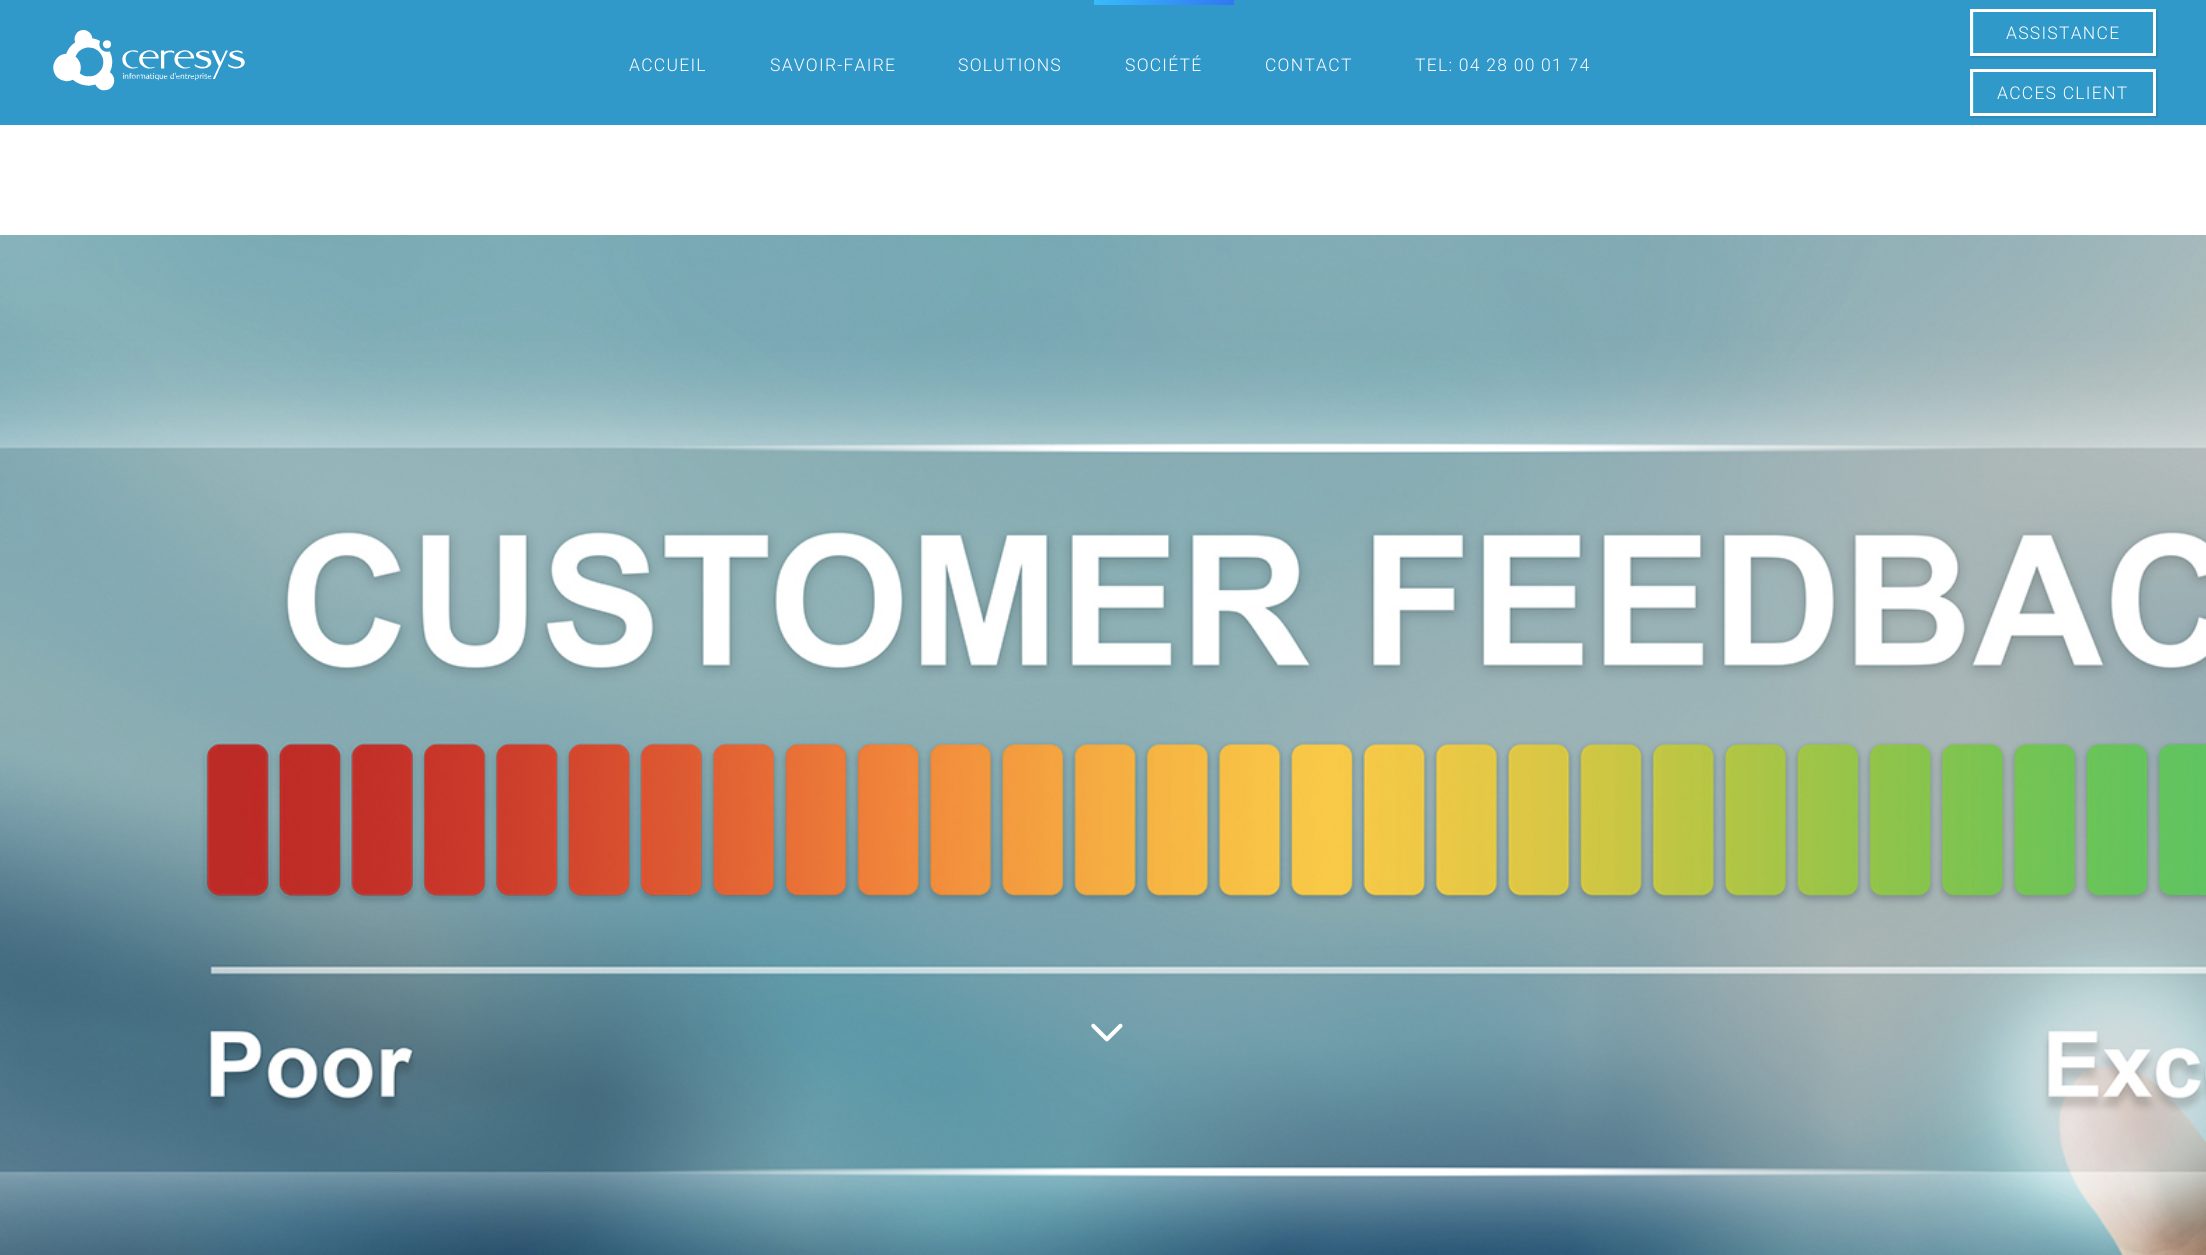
import math
import cairocffi as cairo

surface = cairo.ImageSurface(cairo.FORMAT_RGB24, 2206, 1255)
cr = cairo.Context(surface)
options = cairo.FontOptions()
options.set_hint_metrics(cairo.HINT_METRICS_OFF)
options.set_hint_style(cairo.HINT_STYLE_NONE)
cr.set_font_options(options)
cr.set_miter_limit(4)


def use_color(code):
    cr.set_source_rgb(*(v / 255 for v in bytes.fromhex(code[-6:])))


def spaced_text(x, y, s, letter, word):
    cr.move_to(x, y)
    for ch in s:
        cr.show_text(ch)
        cr.rel_move_to(letter + word * (ch == ' '), 0)


def round_rect(x, y, w, h, r):
    cr.new_sub_path()
    for i, (u, v) in enumerate([(x + w - r, y + h - r), (x + r, y + h - r), (x + r, y + r), (x + w - r, y + r)]):
        cr.arc(u, v, r, i * math.pi / 2, (i + 1) * math.pi / 2)
    cr.close_path()


def shadow(x, y, w, h, r, blur, alpha):
    cr.push_group_with_content(cairo.CONTENT_ALPHA)
    cr.set_operator(cairo.OPERATOR_SOURCE)
    for i in range(15, -16, -2):
        e = blur * i / 6
        if min(w, h) + 2 * e > 0:
            cr.set_source_rgba(0, 0, 0, alpha * math.erfc((i - 1) / 8.5) / 2)
            round_rect(x - e, y - e, w + 2 * e, h + 2 * e, max(0, min(r + e + blur * .6, min(w, h) / 2 + e)))
            cr.fill()
    cr.mask(cr.pop_group())


def picture(path, x, y, w, h):
    cr.save()
    cr.set_source_surface(cairo.ImageSurface.create_from_png(path), x, y)
    cr.rectangle(x, y, w, h)
    cr.fill()
    cr.restore()


use_color("#ffffff")
cr.paint()
use_color("#3199ca")
cr.rectangle(0, 0, 2206, 125)
cr.fill()
picture("img1.png", 53, 30, 192, 61)
cr.select_font_face("Roboto Light")
cr.set_font_size(17.5)
use_color("#ffffff")
spaced_text(629, 71, "ACCUEIL", 1.25, 0)
spaced_text(770, 71, "SAVOIR-FAIRE", 1.25, 0)
spaced_text(958, 71, "SOLUTIONS", 1.25, 0)
gradient = cairo.LinearGradient(1094, 2.5, 1234, 2.5)
gradient.add_color_stop_rgba(0, 0.22, 0.737, 0.976, 1)
gradient.add_color_stop_rgba(1, 0.196, 0.463, 0.949, 1)
cr.set_source(gradient)
cr.rectangle(1094, 0, 140, 5)
cr.fill()
use_color("#ffffff")
spaced_text(1125, 71, "SOCIÉTÉ", 1.25, 0)
spaced_text(1265, 71, "CONTACT", 1.25, 0)
spaced_text(1415, 71, "TEL: 04 28 00 01 74", 1.25, 0)
use_color("#000000")
shadow(1971, 10, 187, 48, 0, 0.5, 0.1)
use_color("#2f99c9")
cr.rectangle(1974, 12, 179, 41)
cr.fill()
cr.save()
cr.rectangle(1973, 11, 181, 43)
cr.clip()
use_color("#45a7d4")
cr.set_fill_rule(cairo.FILL_RULE_EVEN_ODD)
cr.new_path()
cr.move_to(1849, -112)
cr.line_to(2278, -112)
cr.line_to(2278, 178)
cr.line_to(1849, 178)
cr.close_path()
cr.move_to(1974, 12)
cr.line_to(2155, 12)
cr.line_to(2155, 55)
cr.line_to(1974, 55)
cr.close_path()
cr.fill()
cr.restore()
cr.rectangle(1971.5, 10.5, 183, 44)
use_color("#ffffff")
cr.set_line_width(3)
cr.stroke()
spaced_text(2006, 39, "ASSISTANCE", 1.25, 0)
use_color("#000000")
shadow(1971, 70, 187, 48, 0, 0.5, 0.1)
use_color("#2f99c9")
cr.rectangle(1974, 72, 179, 41)
cr.fill()
cr.save()
cr.rectangle(1973, 71, 181, 43)
cr.clip()
use_color("#45a7d4")
cr.set_fill_rule(cairo.FILL_RULE_EVEN_ODD)
cr.new_path()
cr.move_to(1849, -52)
cr.line_to(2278, -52)
cr.line_to(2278, 238)
cr.line_to(1849, 238)
cr.close_path()
cr.move_to(1974, 72)
cr.line_to(2155, 72)
cr.line_to(2155, 115)
cr.line_to(1974, 115)
cr.close_path()
cr.fill()
cr.restore()
cr.rectangle(1971.5, 70.5, 183, 44)
use_color("#ffffff")
cr.stroke()
spaced_text(1997, 99, "ACCES CLIENT", 1.25, 0)
picture("img2.png", 0, 235, 2206, 1020)
picture("img3.png", 1091, 1023, 32, 19)
surface.write_to_png("result.png")
